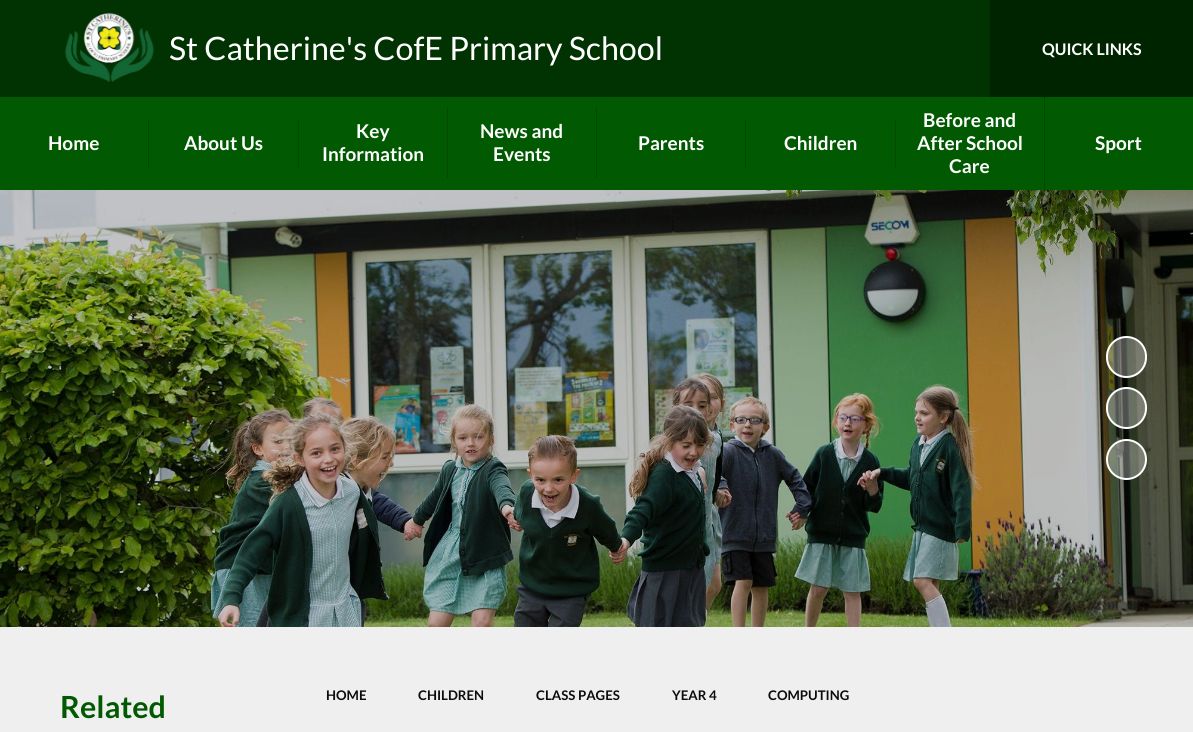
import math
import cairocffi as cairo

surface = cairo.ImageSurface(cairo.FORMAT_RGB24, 1193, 732)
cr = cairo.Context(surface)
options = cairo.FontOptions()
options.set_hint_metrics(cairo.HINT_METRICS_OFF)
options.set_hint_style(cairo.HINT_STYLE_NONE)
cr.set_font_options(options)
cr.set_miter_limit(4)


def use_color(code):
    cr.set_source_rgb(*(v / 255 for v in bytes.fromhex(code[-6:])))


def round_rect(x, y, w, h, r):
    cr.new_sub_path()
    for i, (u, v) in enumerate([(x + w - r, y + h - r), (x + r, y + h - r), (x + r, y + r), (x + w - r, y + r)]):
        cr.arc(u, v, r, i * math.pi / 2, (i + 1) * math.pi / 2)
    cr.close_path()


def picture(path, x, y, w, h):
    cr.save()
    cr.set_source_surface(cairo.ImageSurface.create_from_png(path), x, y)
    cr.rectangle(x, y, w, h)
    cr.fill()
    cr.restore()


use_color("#ffffff")
cr.paint()
use_color("#015a01")
cr.rectangle(0, 97, 1193, 93)
cr.fill()
use_color("#013201")
cr.rectangle(0, 0, 990, 97)
cr.fill()
picture("img1.png", 65, 12, 89, 70)
cr.select_font_face("Lato")
cr.set_font_size(32.25)
use_color("#ffffff")
cr.move_to(169, 60)
cr.show_text("St Catherine's CofE Primary School")
use_color("#002400")
cr.rectangle(990, 0, 203, 97)
cr.fill()
cr.select_font_face("Lato", cairo.FONT_SLANT_NORMAL, cairo.FONT_WEIGHT_BOLD)
cr.set_font_size(16)
use_color("#ffffff")
cr.move_to(1042, 55)
cr.show_text("QUICK LINKS")
use_color("#014801")
cr.rectangle(148, 119, 1, 48)
cr.fill()
cr.set_font_size(19)
use_color("#ffffff")
cr.move_to(48, 150)
cr.show_text("Home")
use_color("#014801")
cr.rectangle(298, 119, 1, 48)
cr.fill()
use_color("#ffffff")
cr.move_to(184, 150)
cr.show_text("About Us")
use_color("#014801")
cr.rectangle(447, 108, 1, 70)
cr.fill()
use_color("#ffffff")
cr.move_to(356, 138)
cr.show_text("Key")
cr.move_to(322, 161)
cr.show_text("Information")
use_color("#014801")
cr.rectangle(596, 108, 1, 70)
cr.fill()
use_color("#ffffff")
cr.move_to(480, 138)
cr.show_text("News and")
cr.move_to(493, 161)
cr.show_text("Events")
use_color("#014801")
cr.rectangle(745, 119, 1, 48)
cr.fill()
use_color("#ffffff")
cr.move_to(638, 150)
cr.show_text("Parents")
use_color("#014801")
cr.rectangle(895, 119, 1, 48)
cr.fill()
use_color("#ffffff")
cr.move_to(784, 150)
cr.show_text("Children")
use_color("#014801")
cr.rectangle(1044, 97, 1, 93)
cr.fill()
use_color("#ffffff")
cr.move_to(923, 127)
cr.show_text("Before and")
cr.move_to(917, 150)
cr.show_text("After School")
cr.move_to(949, 173)
cr.show_text("Care")
cr.move_to(1095, 150)
cr.show_text("Sport")
picture("img2.png", 0, 190, 1193, 437)
cr.set_source_rgba(1, 1, 1, 0.3)
round_rect(1107, 337, 39, 40, 19.5)
cr.fill_preserve()
use_color("#ffffff")
cr.stroke()
cr.set_source_rgba(1, 1, 1, 0.3)
round_rect(1107, 388, 39, 40, 19.5)
cr.fill_preserve()
use_color("#ffffff")
cr.stroke()
cr.set_source_rgba(1, 1, 1, 0.3)
cr.arc(1126.5, 459.5, 19.5, 0, 2 * math.pi)
cr.fill_preserve()
use_color("#ffffff")
cr.stroke()
use_color("#f0efef")
cr.rectangle(0, 627, 1193, 105)
cr.fill()
cr.set_font_size(30.5)
use_color("#015a01")
cr.move_to(60, 718)
cr.show_text("Related")
cr.set_font_size(13.25)
use_color("#0c0c0c")
cr.move_to(326, 700)
cr.show_text("HOME")
cr.move_to(418, 700)
cr.show_text("CHILDREN")
cr.move_to(536, 700)
cr.show_text("CLASS PAGES")
cr.move_to(672, 700)
cr.show_text("YEAR 4")
cr.move_to(768, 700)
cr.show_text("COMPUTING")
surface.write_to_png("result.png")
